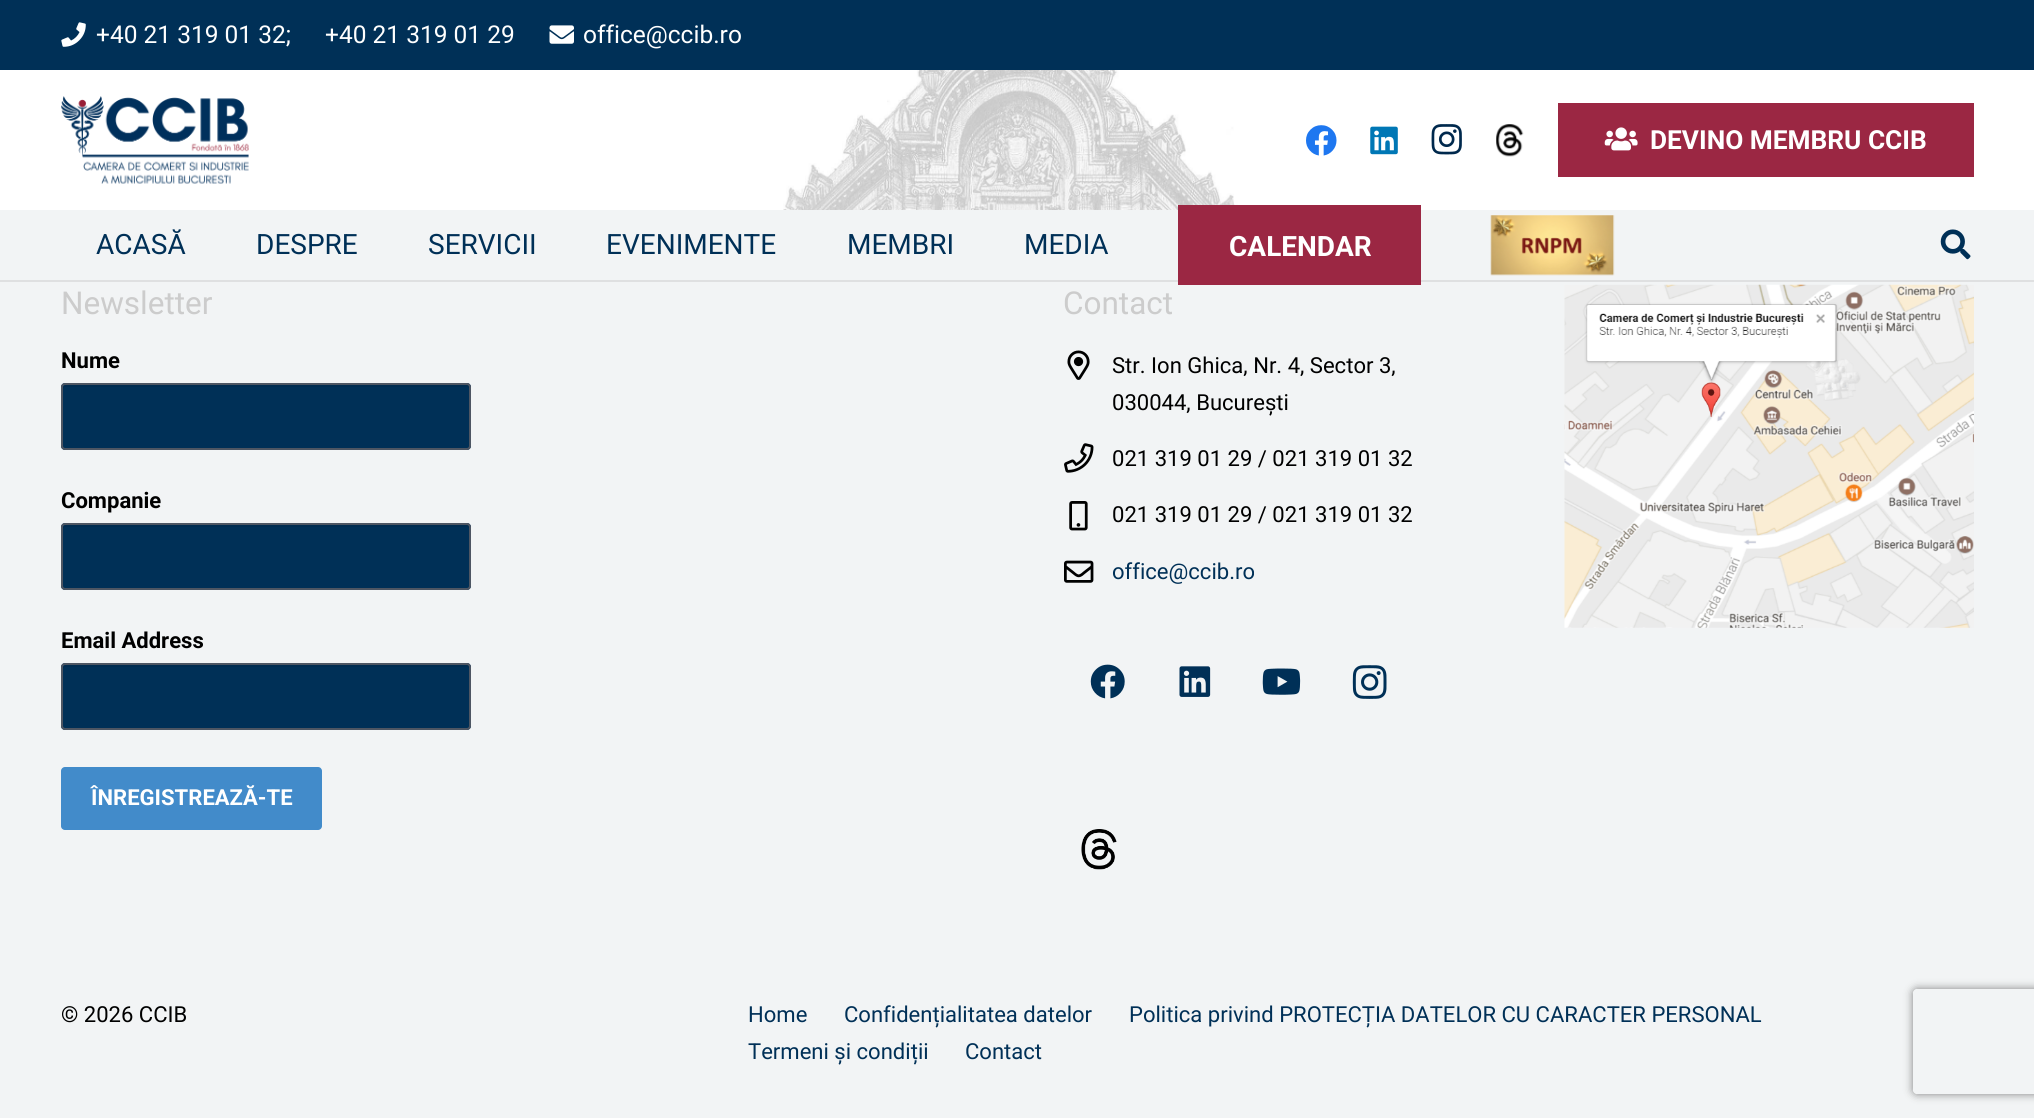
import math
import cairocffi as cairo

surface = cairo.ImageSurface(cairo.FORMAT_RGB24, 2034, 1118)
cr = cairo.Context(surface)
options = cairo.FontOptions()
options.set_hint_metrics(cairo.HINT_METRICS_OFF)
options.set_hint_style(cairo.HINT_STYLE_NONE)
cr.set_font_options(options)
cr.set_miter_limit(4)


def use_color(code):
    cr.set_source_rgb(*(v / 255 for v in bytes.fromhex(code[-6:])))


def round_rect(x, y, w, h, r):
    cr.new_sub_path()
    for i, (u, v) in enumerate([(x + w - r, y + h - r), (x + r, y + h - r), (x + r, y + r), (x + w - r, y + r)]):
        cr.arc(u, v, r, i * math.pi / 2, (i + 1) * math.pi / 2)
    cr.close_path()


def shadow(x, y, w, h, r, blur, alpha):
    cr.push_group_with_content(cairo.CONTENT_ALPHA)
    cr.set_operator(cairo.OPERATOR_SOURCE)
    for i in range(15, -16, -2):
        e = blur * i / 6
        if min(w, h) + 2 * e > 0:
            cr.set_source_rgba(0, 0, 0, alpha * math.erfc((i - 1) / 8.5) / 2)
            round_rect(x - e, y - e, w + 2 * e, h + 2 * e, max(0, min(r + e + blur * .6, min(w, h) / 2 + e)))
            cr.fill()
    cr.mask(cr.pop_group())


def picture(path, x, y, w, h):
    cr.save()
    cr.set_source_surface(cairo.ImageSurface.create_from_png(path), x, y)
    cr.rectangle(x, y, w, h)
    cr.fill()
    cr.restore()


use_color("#f2f4f5")
cr.paint()
use_color("#003057")
cr.rectangle(0, 0, 2034, 70)
cr.fill()
picture("img1.png", 61, 22, 25, 25)
cr.select_font_face("Roboto")
cr.set_font_size(24.5)
use_color("#ffffff")
cr.move_to(96, 43)
cr.show_text("+40 21 319 01 32;")
cr.move_to(325, 43)
cr.show_text("+40 21 319 01 29")
picture("img2.png", 549, 25, 25, 19)
cr.move_to(583, 43)
cr.show_text("office@ccib.ro")
cr.rectangle(0, 70, 2034, 140)
cr.fill()
picture("img3.png", 783, 70, 455, 140)
picture("img4.png", 61, 96, 188, 88)
picture("img5.png", 1306, 125, 31, 31)
picture("img6.png", 1370, 126, 28, 29)
picture("img7.png", 1431, 124, 31, 31)
picture("img8.png", 1496, 124, 28, 33)
use_color("#9b2743")
cr.rectangle(1558, 103, 416, 74)
cr.fill()
picture("img9.png", 1604, 127, 34, 24)
cr.select_font_face("Roboto", cairo.FONT_SLANT_NORMAL, cairo.FONT_WEIGHT_BOLD)
cr.set_font_size(26.25)
use_color("#ffffff")
cr.move_to(1650, 149)
cr.show_text("DEVINO MEMBRU CCIB")
use_color("#dfe0e1")
cr.rectangle(0, 280, 2034, 2)
cr.fill()
cr.select_font_face("Roboto")
cr.set_font_size(28)
use_color("#003057")
cr.move_to(96, 254)
cr.show_text("ACASĂ")
cr.move_to(256, 254)
cr.show_text("DESPRE")
cr.move_to(428, 254)
cr.show_text("SERVICII")
cr.move_to(606, 254)
cr.show_text("EVENIMENTE")
cr.move_to(847, 254)
cr.show_text("MEMBRI")
cr.move_to(1024, 254)
cr.show_text("MEDIA")
use_color("#9b2743")
cr.rectangle(1178, 205, 243, 80)
cr.fill()
cr.select_font_face("Roboto", cairo.FONT_SLANT_NORMAL, cairo.FONT_WEIGHT_BOLD)
use_color("#ffffff")
cr.move_to(1229, 256)
cr.show_text("CALENDAR")
picture("img10.png", 1490, 215, 125, 61)
picture("img11.png", 1940, 229, 31, 31)
cr.select_font_face("Roboto")
cr.set_font_size(31.5)
use_color("#cccccc")
cr.move_to(61, 314)
cr.show_text("Newsletter")
cr.select_font_face("Roboto", cairo.FONT_SLANT_NORMAL, cairo.FONT_WEIGHT_BOLD)
cr.set_font_size(22.05)
use_color("#000000")
cr.move_to(61, 368)
cr.show_text("Nume")
use_color("#003057")
round_rect(61, 383, 410, 67, 4)
cr.fill()
use_color("#002c50")
cr.new_path()
cr.move_to(65, 387)
cr.line_to(467, 387)
cr.line_to(469, 388)
cr.curve_to(469, 387, 469, 386, 468, 385)
cr.line_to(65, 385)
cr.line_to(63, 386)
cr.line_to(63, 388)
cr.close_path()
cr.fill()
round_rect(62, 384, 408, 65, 3)
use_color("#4e5663")
cr.stroke()
use_color("#000000")
cr.move_to(61, 508)
cr.show_text("Companie")
use_color("#003057")
round_rect(61, 523, 410, 67, 4)
cr.fill()
use_color("#002c50")
cr.new_path()
cr.move_to(65, 527)
cr.line_to(467, 527)
cr.line_to(469, 528)
cr.curve_to(469, 527, 469, 526, 468, 525)
cr.line_to(65, 525)
cr.line_to(63, 526)
cr.line_to(63, 528)
cr.close_path()
cr.fill()
round_rect(62, 524, 408, 65, 3)
use_color("#4e5663")
cr.stroke()
use_color("#000000")
cr.move_to(61, 648)
cr.show_text("Email Address")
use_color("#003057")
round_rect(61, 663, 410, 67, 4)
cr.fill()
use_color("#002c50")
cr.new_path()
cr.move_to(65, 667)
cr.line_to(467, 667)
cr.line_to(469, 668)
cr.curve_to(469, 667, 469, 666, 468, 665)
cr.line_to(65, 665)
cr.line_to(63, 666)
cr.line_to(63, 668)
cr.close_path()
cr.fill()
round_rect(62, 664, 408, 65, 3)
use_color("#4e5663")
cr.stroke()
use_color("#428bca")
round_rect(61, 767, 261, 63, 4)
cr.fill()
use_color("#ffffff")
cr.move_to(91, 805)
cr.show_text("ÎNREGISTREAZĂ-TE")
cr.select_font_face("Roboto")
cr.set_font_size(31.5)
use_color("#cccccc")
cr.move_to(1063, 314)
cr.show_text("Contact")
picture("img12.png", 1067, 350, 23, 30)
cr.set_font_size(22.05)
use_color("#000000")
cr.move_to(1112, 373)
cr.show_text("Str. Ion Ghica, Nr. 4, Sector 3,")
cr.move_to(1112, 410)
cr.show_text("030044, București")
picture("img13.png", 1064, 443, 30, 30)
cr.move_to(1112, 466)
cr.show_text("021 319 01 29 / 021 319 01 32")
picture("img14.png", 1069, 501, 19, 30)
cr.move_to(1112, 522)
cr.show_text("021 319 01 29 / 021 319 01 32")
picture("img15.png", 1064, 560, 30, 23)
use_color("#003057")
cr.move_to(1112, 579)
cr.show_text("office@ccib.ro")
picture("img16.png", 1090, 664, 35, 35)
picture("img17.png", 1179, 666, 32, 31)
picture("img18.png", 1262, 668, 39, 27)
picture("img19.png", 1352, 665, 35, 34)
picture("img20.png", 1081, 829, 36, 41)
picture("img21.png", 1564, 284, 410, 344)
use_color("#000000")
cr.move_to(61, 1022)
cr.show_text("© 2026 CCIB")
use_color("#003057")
cr.move_to(748, 1022)
cr.show_text("Home")
cr.move_to(844, 1022)
cr.show_text("Confidențialitatea datelor")
cr.move_to(1129, 1022)
cr.show_text("Politica privind PROTECȚIA DATELOR CU CARACTER PERSONAL")
cr.move_to(748, 1059)
cr.show_text("Termeni și condiții")
cr.move_to(965, 1059)
cr.show_text("Contact")
cr.save()
cr.set_fill_rule(cairo.FILL_RULE_EVEN_ODD)
cr.new_path()
cr.move_to(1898, 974)
cr.line_to(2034, 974)
cr.line_to(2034, 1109)
cr.line_to(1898, 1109)
cr.close_path()
cr.move_to(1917, 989)
cr.line_to(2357, 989)
cr.curve_to(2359, 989, 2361, 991, 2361, 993)
cr.line_to(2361, 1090)
cr.curve_to(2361, 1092, 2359, 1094, 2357, 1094)
cr.line_to(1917, 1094)
cr.curve_to(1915, 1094, 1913, 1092, 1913, 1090)
cr.line_to(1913, 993)
cr.curve_to(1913, 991, 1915, 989, 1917, 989)
cr.close_path()
cr.clip()
use_color("#808080")
shadow(1913, 989, 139, 105, 4, 4.5, 1)
cr.restore()
surface.write_to_png("result.png")
